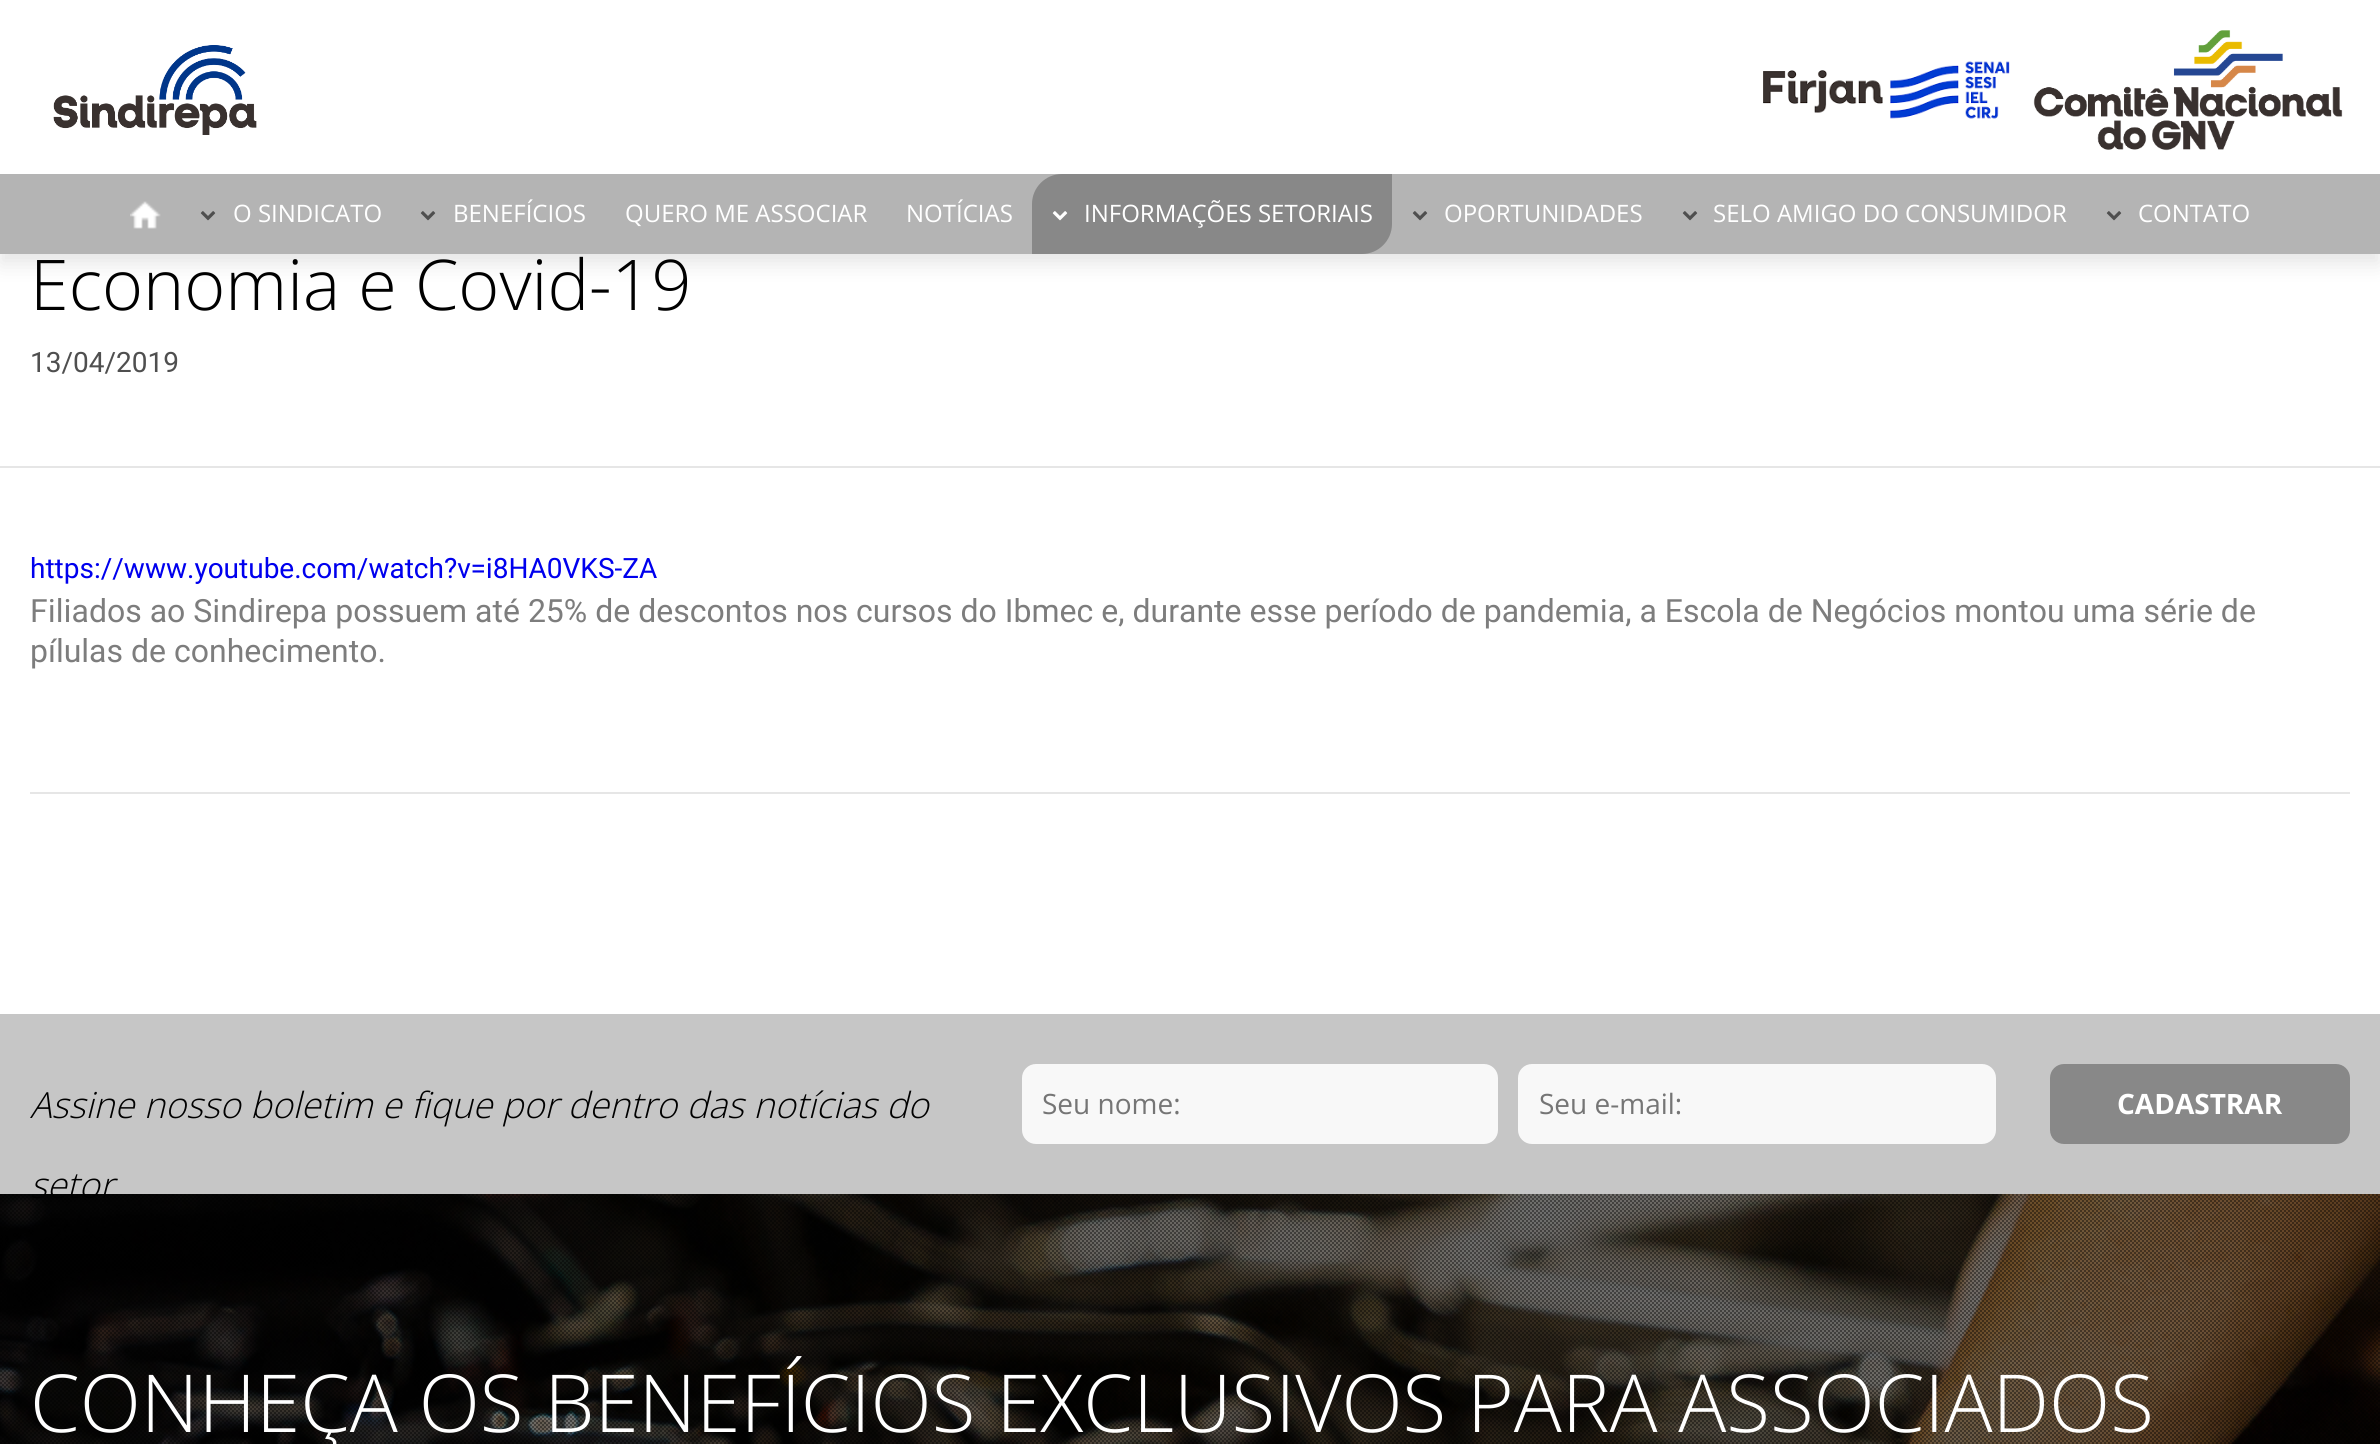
import math
import cairocffi as cairo

surface = cairo.ImageSurface(cairo.FORMAT_RGB24, 2380, 1444)
cr = cairo.Context(surface)
options = cairo.FontOptions()
options.set_hint_metrics(cairo.HINT_METRICS_OFF)
options.set_hint_style(cairo.HINT_STYLE_NONE)
cr.set_font_options(options)
cr.set_miter_limit(4)


def use_color(code):
    cr.set_source_rgb(*(v / 255 for v in bytes.fromhex(code[-6:])))


def round_rect(x, y, w, h, r):
    cr.new_sub_path()
    for i, (u, v) in enumerate([(x + w - r, y + h - r), (x + r, y + h - r), (x + r, y + r), (x + w - r, y + r)]):
        cr.arc(u, v, r, i * math.pi / 2, (i + 1) * math.pi / 2)
    cr.close_path()


def shadow(x, y, w, h, r, blur, alpha):
    cr.push_group_with_content(cairo.CONTENT_ALPHA)
    cr.set_operator(cairo.OPERATOR_SOURCE)
    for i in range(15, -16, -2):
        e = blur * i / 6
        if min(w, h) + 2 * e > 0:
            cr.set_source_rgba(0, 0, 0, alpha * math.erfc((i - 1) / 8.5) / 2)
            round_rect(x - e, y - e, w + 2 * e, h + 2 * e, max(0, min(r + e + blur * .6, min(w, h) / 2 + e)))
            cr.fill()
    cr.mask(cr.pop_group())


def picture(path, x, y, w, h):
    cr.save()
    cr.set_source_surface(cairo.ImageSurface.create_from_png(path), x, y)
    cr.rectangle(x, y, w, h)
    cr.fill()
    cr.restore()


use_color("#ffffff")
cr.paint()
use_color("#000000")
shadow(0, 10, 2380, 254, 0, 10, 0.1)
use_color("#ffffff")
cr.rectangle(0, 0, 2380, 174)
cr.fill()
picture("img1.png", 53, 45, 204, 90)
picture("img2.png", 1763, 61, 247, 58)
picture("img3.png", 2033, 30, 310, 121)
use_color("#b4b4b4")
cr.rectangle(0, 174, 2380, 80)
cr.fill()
picture("img4.png", 130, 201, 31, 28)
picture("img5.png", 200, 211, 16, 10)
cr.select_font_face("Open Sans")
cr.set_font_size(24)
use_color("#ffffff")
cr.move_to(233, 222)
cr.show_text("O SINDICATO")
picture("img5.png", 420, 211, 16, 10)
cr.move_to(453, 222)
cr.show_text("BENEFÍCIOS")
cr.move_to(625, 222)
cr.show_text("QUERO ME ASSOCIAR")
cr.move_to(906, 222)
cr.show_text("NOTÍCIAS")
use_color("#888888")
cr.new_path()
cr.move_to(1062, 174)
cr.line_to(1392, 174)
cr.line_to(1392, 224)
cr.curve_to(1392, 240.5, 1378.5, 254, 1362, 254)
cr.line_to(1032, 254)
cr.line_to(1032, 204)
cr.curve_to(1032, 187.5, 1045.5, 174, 1062, 174)
cr.close_path()
cr.fill()
picture("img6.png", 1052, 211, 16, 10)
use_color("#ffffff")
cr.move_to(1084, 222)
cr.show_text("INFORMAÇÕES SETORIAIS")
picture("img5.png", 1412, 211, 16, 10)
cr.move_to(1444, 222)
cr.show_text("OPORTUNIDADES")
picture("img5.png", 1682, 211, 16, 10)
cr.move_to(1713, 222)
cr.show_text("SELO AMIGO DO CONSUMIDOR")
picture("img5.png", 2106, 211, 16, 10)
cr.move_to(2138, 222)
cr.show_text("CONTATO")
use_color("#e6e6e6")
cr.rectangle(0, 466, 2380, 2)
cr.fill()
cr.select_font_face("Open Sans Light")
cr.set_font_size(70)
use_color("#000000")
cr.move_to(30, 310)
cr.show_text("Economia e Covid-19")
cr.select_font_face("Heebo")
cr.set_font_size(28)
use_color("#4f4f4f")
cr.move_to(30, 372)
cr.show_text("13/04/2019")
use_color("#0000ee")
cr.move_to(30, 578)
cr.show_text("https://www.youtube.com/watch?v=i8HA0VKS-ZA")
cr.set_font_size(32)
use_color("#7d7d7d")
cr.move_to(30, 622)
cr.show_text("Filiados ao Sindirepa possuem até 25% de descontos nos cursos do Ibmec e, durante esse período de pandemia, a Escola de Negócios montou uma série de")
cr.move_to(30, 662)
cr.show_text("pílulas de conhecimento.")
use_color("#e6e6e6")
cr.rectangle(30, 792, 2320, 2)
cr.fill()
use_color("#c6c6c6")
cr.rectangle(0, 1014, 2380, 180)
cr.fill()
cr.select_font_face("Open Sans Light", cairo.FONT_SLANT_ITALIC)
cr.set_font_size(36)
use_color("#000000")
cr.move_to(30, 1118)
cr.show_text("Assine nosso boletim e fique por dentro das notícias do")
picture("img7.png", 0, 1194, 2380, 250)
picture("img8.png", 0, 1194, 2380, 250)
cr.move_to(30, 1198)
cr.show_text("setor")
use_color("#f8f8f8")
round_rect(1022, 1064, 476, 80, 14)
cr.fill()
cr.select_font_face("Open Sans")
cr.set_font_size(28)
use_color("#757575")
cr.move_to(1042, 1114)
cr.show_text("Seu nome:")
use_color("#f8f8f8")
round_rect(1518, 1064, 478, 80, 14)
cr.fill()
use_color("#757575")
cr.move_to(1539, 1114)
cr.show_text("Seu e-mail:")
use_color("#888888")
round_rect(2050, 1064, 300, 80, 14)
cr.fill()
cr.select_font_face("Open Sans", cairo.FONT_SLANT_NORMAL, cairo.FONT_WEIGHT_BOLD)
use_color("#ffffff")
cr.move_to(2117, 1114)
cr.show_text("CADASTRAR")
cr.select_font_face("Open Sans Light")
cr.set_font_size(80)
cr.move_to(30, 1432)
cr.show_text("CONHEÇA OS BENEFÍCIOS EXCLUSIVOS PARA ASSOCIADOS")
surface.write_to_png("result.png")
